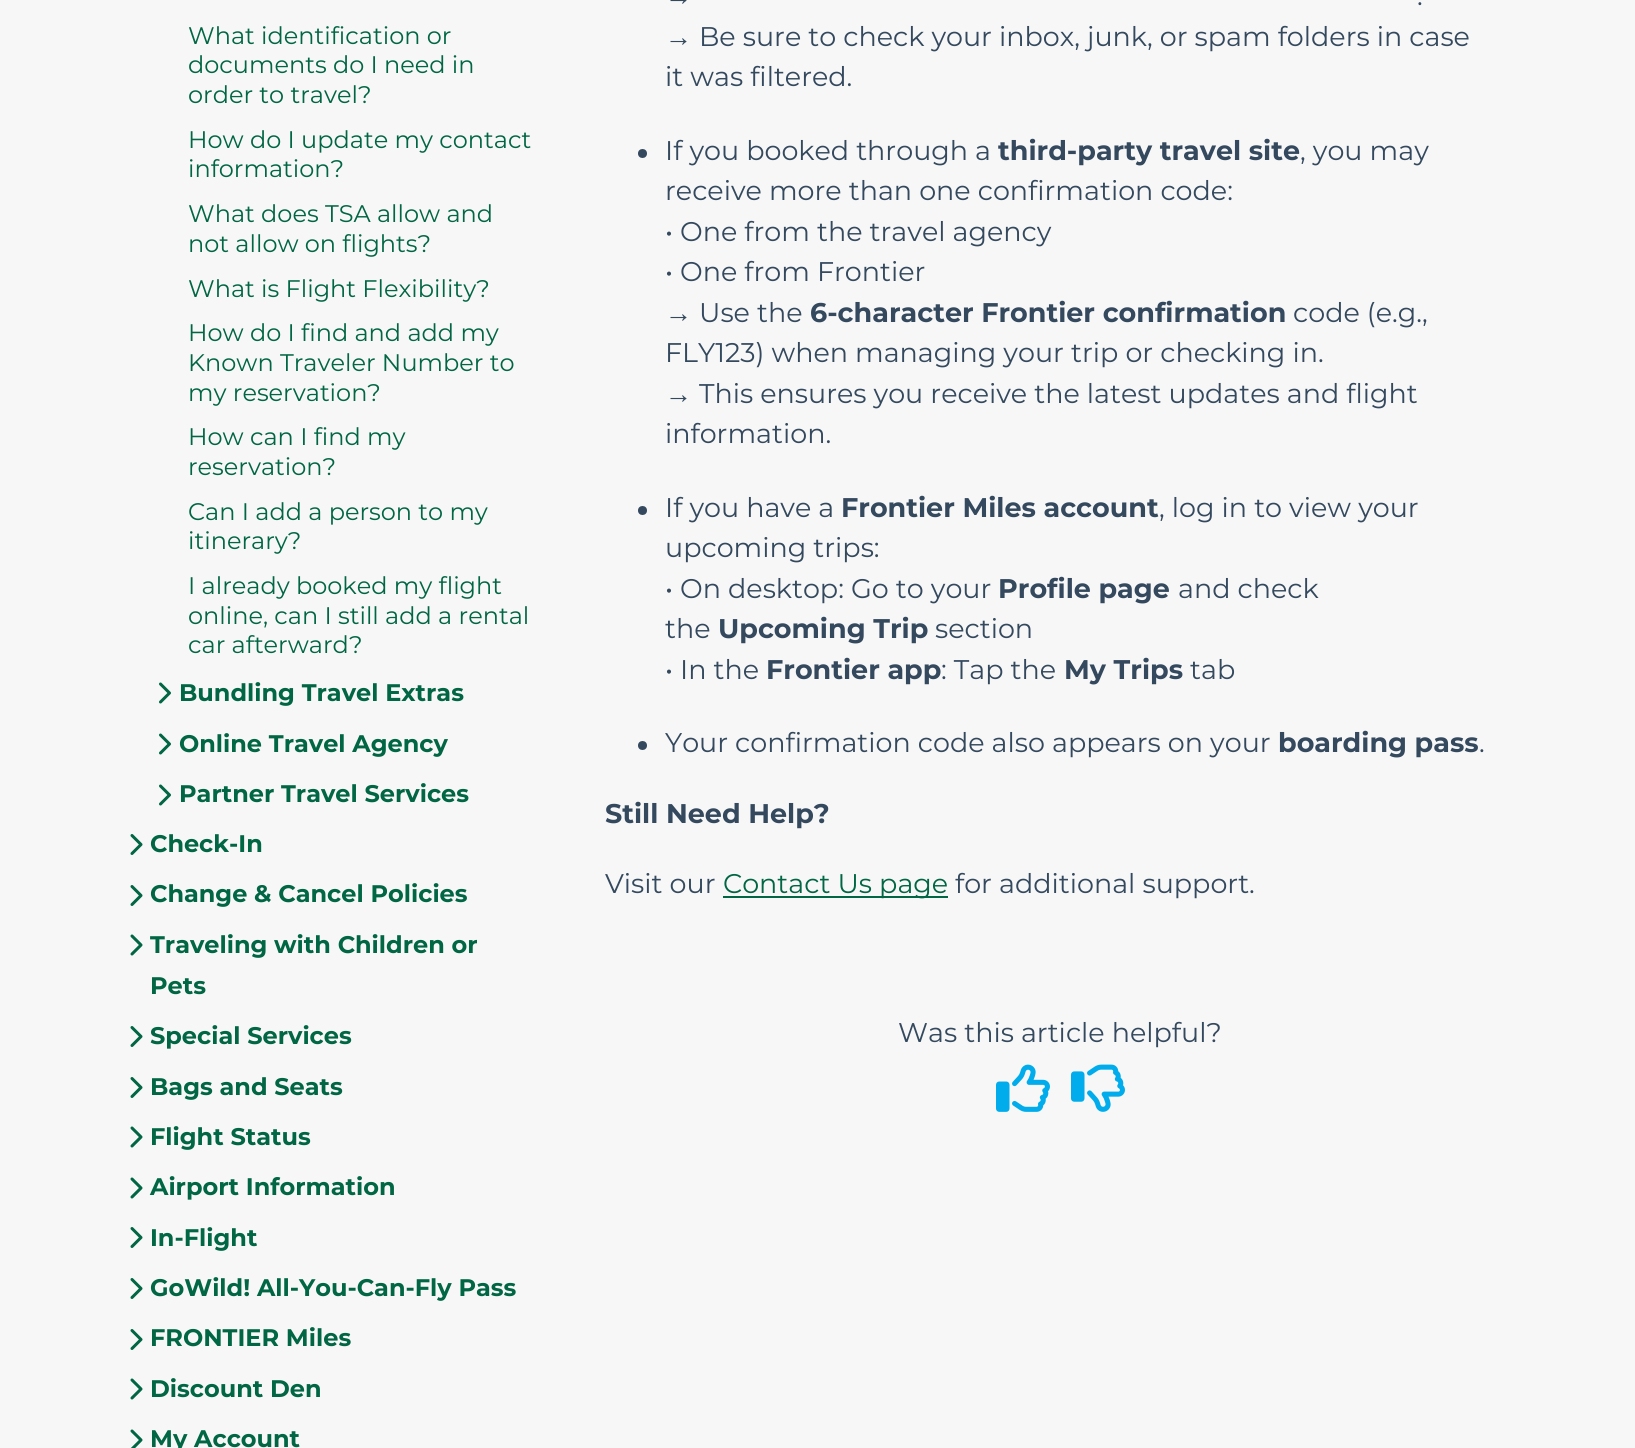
import math
import cairocffi as cairo

surface = cairo.ImageSurface(cairo.FORMAT_RGB24, 1635, 1448)
cr = cairo.Context(surface)
options = cairo.FontOptions()
options.set_hint_metrics(cairo.HINT_METRICS_OFF)
options.set_hint_style(cairo.HINT_STYLE_NONE)
cr.set_font_options(options)
cr.set_miter_limit(4)


def use_color(code):
    cr.set_source_rgb(*(v / 255 for v in bytes.fromhex(code[-6:])))


def picture(path, x, y, w, h):
    cr.save()
    cr.set_source_surface(cairo.ImageSurface.create_from_png(path), x, y)
    cr.rectangle(x, y, w, h)
    cr.fill()
    cr.restore()


use_color("#f7f7f7")
cr.paint()
cr.select_font_face("Montserrat")
cr.set_font_size(24)
use_color("#006643")
cr.move_to(188, 44)
cr.show_text("What identification or")
cr.move_to(188, 73)
cr.show_text("documents do I need in")
cr.move_to(188, 103)
cr.show_text("order to travel?")
cr.move_to(188, 148)
cr.show_text("How do I update my contact")
cr.move_to(188, 177)
cr.show_text("information?")
cr.move_to(188, 222)
cr.show_text("What does TSA allow and")
cr.move_to(188, 252)
cr.show_text("not allow on flights?")
cr.move_to(188, 297)
cr.show_text("What is Flight Flexibility?")
cr.move_to(188, 341)
cr.show_text("How do I find and add my")
cr.move_to(188, 371)
cr.show_text("Known Traveler Number to")
cr.move_to(188, 401)
cr.show_text("my reservation?")
cr.move_to(188, 445)
cr.show_text("How can I find my")
cr.move_to(188, 475)
cr.show_text("reservation?")
cr.move_to(188, 520)
cr.show_text("Can I add a person to my")
cr.move_to(188, 549)
cr.show_text("itinerary?")
cr.move_to(188, 594)
cr.show_text("I already booked my flight")
cr.move_to(188, 624)
cr.show_text("online, can I still add a rental")
cr.move_to(188, 653)
cr.show_text("car afterward?")
picture("img1.png", 159, 682, 12, 22)
cr.select_font_face("Montserrat", cairo.FONT_SLANT_NORMAL, cairo.FONT_WEIGHT_BOLD)
cr.move_to(179, 701)
cr.show_text("Bundling Travel Extras")
picture("img1.png", 159, 733, 12, 22)
cr.move_to(179, 752)
cr.show_text("Online Travel Agency")
picture("img1.png", 159, 784, 12, 22)
cr.move_to(179, 802)
cr.show_text("Partner Travel Services")
picture("img2.png", 130, 834, 13, 21)
cr.move_to(150, 852)
cr.show_text("Check-In")
picture("img2.png", 130, 885, 13, 21)
cr.move_to(150, 902)
cr.show_text("Change & Cancel Policies")
picture("img3.png", 130, 934, 13, 22)
cr.move_to(150, 953)
cr.show_text("Traveling with Children or")
cr.move_to(150, 994)
cr.show_text("Pets")
picture("img2.png", 130, 1026, 13, 21)
cr.move_to(150, 1044)
cr.show_text("Special Services")
picture("img2.png", 130, 1077, 13, 21)
cr.move_to(150, 1095)
cr.show_text("Bags and Seats")
picture("img3.png", 130, 1126, 13, 22)
cr.move_to(150, 1145)
cr.show_text("Flight Status")
picture("img3.png", 130, 1177, 13, 22)
cr.move_to(150, 1195)
cr.show_text("Airport Information")
picture("img2.png", 130, 1227, 13, 21)
cr.move_to(150, 1246)
cr.show_text("In-Flight")
picture("img2.png", 130, 1278, 13, 21)
cr.move_to(150, 1296)
cr.show_text("GoWild! All-You-Can-Fly Pass")
picture("img2.png", 130, 1329, 13, 21)
cr.move_to(150, 1346)
cr.show_text("FRONTIER Miles")
picture("img3.png", 130, 1378, 13, 22)
cr.move_to(150, 1397)
cr.show_text("Discount Den")
picture("img4.png", 130, 1429, 13, 19)
cr.move_to(150, 1447)
cr.show_text("My Account")
cr.select_font_face("Liberation Serif")
cr.set_font_size(27)
use_color("#34495e")
cr.move_to(665, 5)
cr.show_text("→")
cr.select_font_face("Montserrat")
cr.move_to(1417, 5)
cr.show_text(".")
cr.select_font_face("Liberation Serif")
cr.move_to(665, 46)
cr.show_text("→")
cr.select_font_face("Montserrat")
cr.move_to(699, 46)
cr.show_text("Be sure to check your inbox, junk, or spam folders in case")
cr.move_to(665, 86)
cr.show_text("it was filtered.")
cr.new_path()
cr.arc(642.5, 153.5, 4.5, 0, 2 * math.pi)
cr.fill()
cr.move_to(665, 160)
cr.show_text("If you booked through a")
cr.select_font_face("Montserrat", cairo.FONT_SLANT_NORMAL, cairo.FONT_WEIGHT_BOLD)
cr.move_to(998, 160)
cr.show_text("third-party travel site")
cr.select_font_face("Montserrat")
cr.move_to(1300, 160)
cr.show_text(", you may")
cr.move_to(665, 200)
cr.show_text("receive more than one confirmation code:")
cr.move_to(665, 241)
cr.show_text("• One from the travel agency")
cr.move_to(665, 281)
cr.show_text("• One from Frontier")
cr.select_font_face("Liberation Serif")
cr.move_to(665, 322)
cr.show_text("→")
cr.select_font_face("Montserrat")
cr.move_to(699, 322)
cr.show_text("Use the")
cr.select_font_face("Montserrat", cairo.FONT_SLANT_NORMAL, cairo.FONT_WEIGHT_BOLD)
cr.move_to(810, 322)
cr.show_text("6-character Frontier confirmation")
cr.select_font_face("Montserrat")
cr.move_to(1293, 322)
cr.show_text("code (e.g.,")
cr.move_to(665, 362)
cr.show_text("FLY123) when managing your trip or checking in.")
cr.select_font_face("Liberation Serif")
cr.move_to(665, 403)
cr.show_text("→")
cr.select_font_face("Montserrat")
cr.move_to(699, 403)
cr.show_text("This ensures you receive the latest updates and flight")
cr.move_to(665, 443)
cr.show_text("information.")
cr.new_path()
cr.arc(642.5, 510.5, 4.5, 0, 2 * math.pi)
cr.fill()
cr.move_to(665, 517)
cr.show_text("If you have a")
cr.select_font_face("Montserrat", cairo.FONT_SLANT_NORMAL, cairo.FONT_WEIGHT_BOLD)
cr.move_to(841, 517)
cr.show_text("Frontier Miles account")
cr.select_font_face("Montserrat")
cr.move_to(1159, 517)
cr.show_text(", log in to view your")
cr.move_to(665, 557)
cr.show_text("upcoming trips:")
cr.move_to(665, 598)
cr.show_text("• On desktop: Go to your")
cr.select_font_face("Montserrat", cairo.FONT_SLANT_NORMAL, cairo.FONT_WEIGHT_BOLD)
cr.move_to(998, 598)
cr.show_text("Profile page")
cr.select_font_face("Montserrat")
cr.move_to(1178, 598)
cr.show_text("and check")
cr.move_to(665, 638)
cr.show_text("the")
cr.select_font_face("Montserrat", cairo.FONT_SLANT_NORMAL, cairo.FONT_WEIGHT_BOLD)
cr.move_to(718, 638)
cr.show_text("Upcoming Trip")
cr.select_font_face("Montserrat")
cr.move_to(935, 638)
cr.show_text("section")
cr.move_to(665, 679)
cr.show_text("• In the")
cr.select_font_face("Montserrat", cairo.FONT_SLANT_NORMAL, cairo.FONT_WEIGHT_BOLD)
cr.move_to(766, 679)
cr.show_text("Frontier app")
cr.select_font_face("Montserrat")
cr.move_to(941, 679)
cr.show_text(": Tap the")
cr.select_font_face("Montserrat", cairo.FONT_SLANT_NORMAL, cairo.FONT_WEIGHT_BOLD)
cr.move_to(1064, 679)
cr.show_text("My Trips")
cr.select_font_face("Montserrat")
cr.move_to(1190, 679)
cr.show_text("tab")
cr.new_path()
cr.arc(642.5, 745.5, 4.5, 0, 2 * math.pi)
cr.fill()
cr.move_to(665, 752)
cr.show_text("Your confirmation code also appears on your")
cr.select_font_face("Montserrat", cairo.FONT_SLANT_NORMAL, cairo.FONT_WEIGHT_BOLD)
cr.move_to(1278, 752)
cr.show_text("boarding pass")
cr.select_font_face("Montserrat")
cr.move_to(1479, 752)
cr.show_text(".")
cr.select_font_face("Montserrat", cairo.FONT_SLANT_NORMAL, cairo.FONT_WEIGHT_BOLD)
cr.move_to(605, 823)
cr.show_text("Still Need Help?")
cr.select_font_face("Montserrat")
cr.move_to(605, 893)
cr.show_text("Visit our")
use_color("#006643")
cr.rectangle(723, 896, 225, 2)
cr.fill()
cr.move_to(723, 893)
cr.show_text("Contact Us page")
use_color("#34495e")
cr.move_to(955, 893)
cr.show_text("for additional support.")
cr.move_to(898, 1042)
cr.show_text("Was this article helpful?")
picture("img5.png", 996, 1064, 54, 48)
picture("img6.png", 1071, 1064, 54, 48)
surface.write_to_png("result.png")
